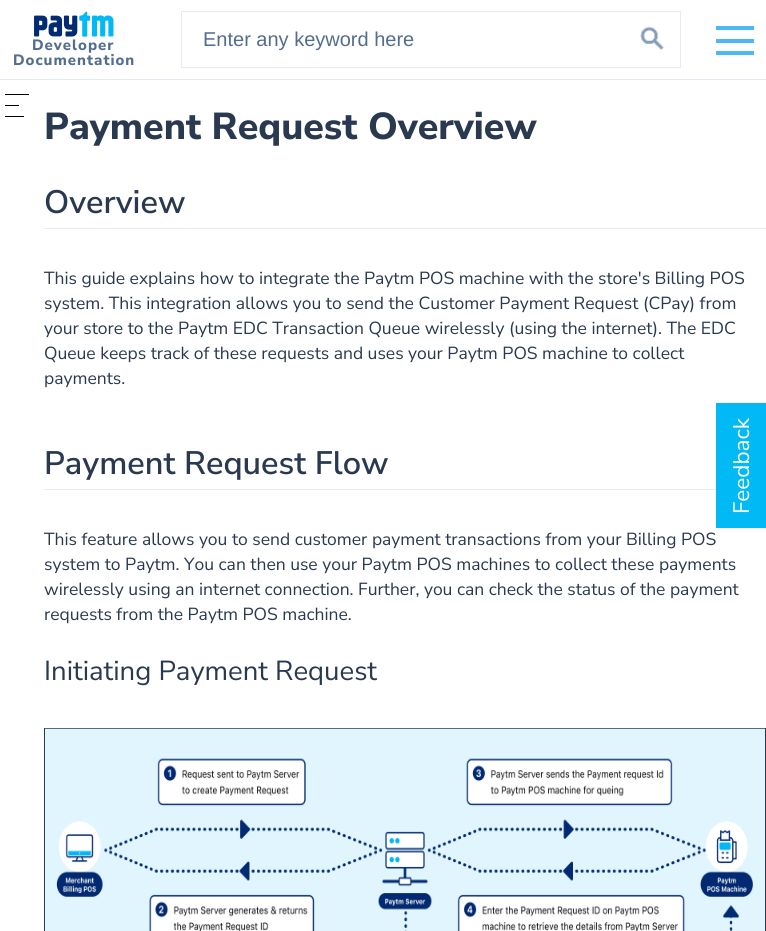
import math
import cairocffi as cairo

surface = cairo.ImageSurface(cairo.FORMAT_RGB24, 766, 931)
cr = cairo.Context(surface)
options = cairo.FontOptions()
options.set_hint_metrics(cairo.HINT_METRICS_OFF)
options.set_hint_style(cairo.HINT_STYLE_NONE)
cr.set_font_options(options)
cr.set_miter_limit(4)


def use_color(code):
    cr.set_source_rgb(*(v / 255 for v in bytes.fromhex(code[-6:])))


def spaced_text(x, y, s, letter, word):
    cr.move_to(x, y)
    for ch in s:
        cr.show_text(ch)
        cr.rel_move_to(letter + word * (ch == ' '), 0)


def picture(path, x, y, w, h):
    cr.save()
    cr.set_source_surface(cairo.ImageSurface.create_from_png(path), x, y)
    cr.rectangle(x, y, w, h)
    cr.fill()
    cr.restore()


use_color("#ffffff")
cr.paint()
use_color("#e6ebf3")
cr.rectangle(0, 79, 766, 1)
cr.fill()
picture("img1.png", 34, 11, 80, 26)
cr.select_font_face("Nunito Sans ExtraBold")
cr.set_font_size(15)
use_color("#536d90")
spaced_text(32, 50, "Developer", 1, 0)
spaced_text(13, 65, "Documentation", 1, 0)
cr.rectangle(181.5, 11.5, 499, 56)
use_color("#e6ebf2")
cr.set_line_width(1)
cr.stroke()
cr.select_font_face("Liberation Sans")
cr.set_font_size(20)
use_color("#536d90")
cr.move_to(203, 46)
cr.show_text("Enter any keyword here")
picture("img2.png", 640, 26, 24, 24)
use_color("#4cb9f5")
cr.rectangle(716, 39, 38, 4)
cr.fill()
cr.rectangle(716, 26, 38, 4)
cr.fill()
cr.rectangle(716, 51, 38, 4)
cr.fill()
use_color("#000000")
cr.rectangle(5, 105, 14, 1)
cr.fill()
cr.rectangle(5, 94, 24, 1)
cr.fill()
cr.rectangle(5, 116, 19, 1)
cr.fill()
cr.select_font_face("Nunito Sans ExtraBold")
cr.set_font_size(37.5)
use_color("#29394f")
cr.move_to(44, 139)
cr.show_text("Payment Request Overview")
use_color("#e6ebf3")
cr.rectangle(44, 228, 722, 1)
cr.fill()
cr.select_font_face("Nunito Sans SemiBold")
cr.set_font_size(32.5)
use_color("#29394f")
cr.move_to(44, 213)
cr.show_text("Overview")
cr.select_font_face("Nunito Sans")
cr.set_font_size(17.5)
cr.move_to(44, 284)
cr.show_text("This guide explains how to integrate the Paytm POS machine with the store's Billing POS")
cr.move_to(44, 309)
cr.show_text("system. This integration allows you to send the Customer Payment Request (CPay) from")
cr.move_to(44, 334)
cr.show_text("your store to the Paytm EDC Transaction Queue wirelessly (using the internet). The EDC")
cr.move_to(44, 359)
cr.show_text("Queue keeps track of these requests and uses your Paytm POS machine to collect")
cr.move_to(44, 384)
cr.show_text("payments.")
use_color("#e6ebf3")
cr.rectangle(44, 489, 672, 1)
cr.fill()
cr.select_font_face("Nunito Sans SemiBold")
cr.set_font_size(32.5)
use_color("#29394f")
cr.move_to(44, 474)
cr.show_text("Payment Request Flow")
cr.select_font_face("Nunito Sans")
cr.set_font_size(17.5)
cr.move_to(44, 545)
cr.show_text("This feature allows you to send customer payment transactions from your Billing POS")
cr.move_to(44, 570)
cr.show_text("system to Paytm. You can then use your Paytm POS machines to collect these payments")
cr.move_to(44, 595)
cr.show_text("wirelessly using an internet connection. Further, you can check the status of the payment")
cr.move_to(44, 620)
cr.show_text("requests from the Paytm POS machine.")
cr.set_font_size(27.5)
cr.move_to(44, 680)
cr.show_text("Initiating Payment Request")
cr.rectangle(44.5, 728.5, 721, 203)
cr.stroke()
picture("img3.png", 45, 728, 720, 203)
use_color("#00b9f5")
cr.rectangle(716, 403, 50, 125)
cr.fill()
cr.set_font_size(22.5)
use_color("#ffffff")
cr.save()
cr.translate(749, 514)
cr.rotate(-90 * math.pi / 180)
cr.move_to(0, 0)
cr.show_text("Feedback")
cr.restore()
surface.write_to_png("result.png")
